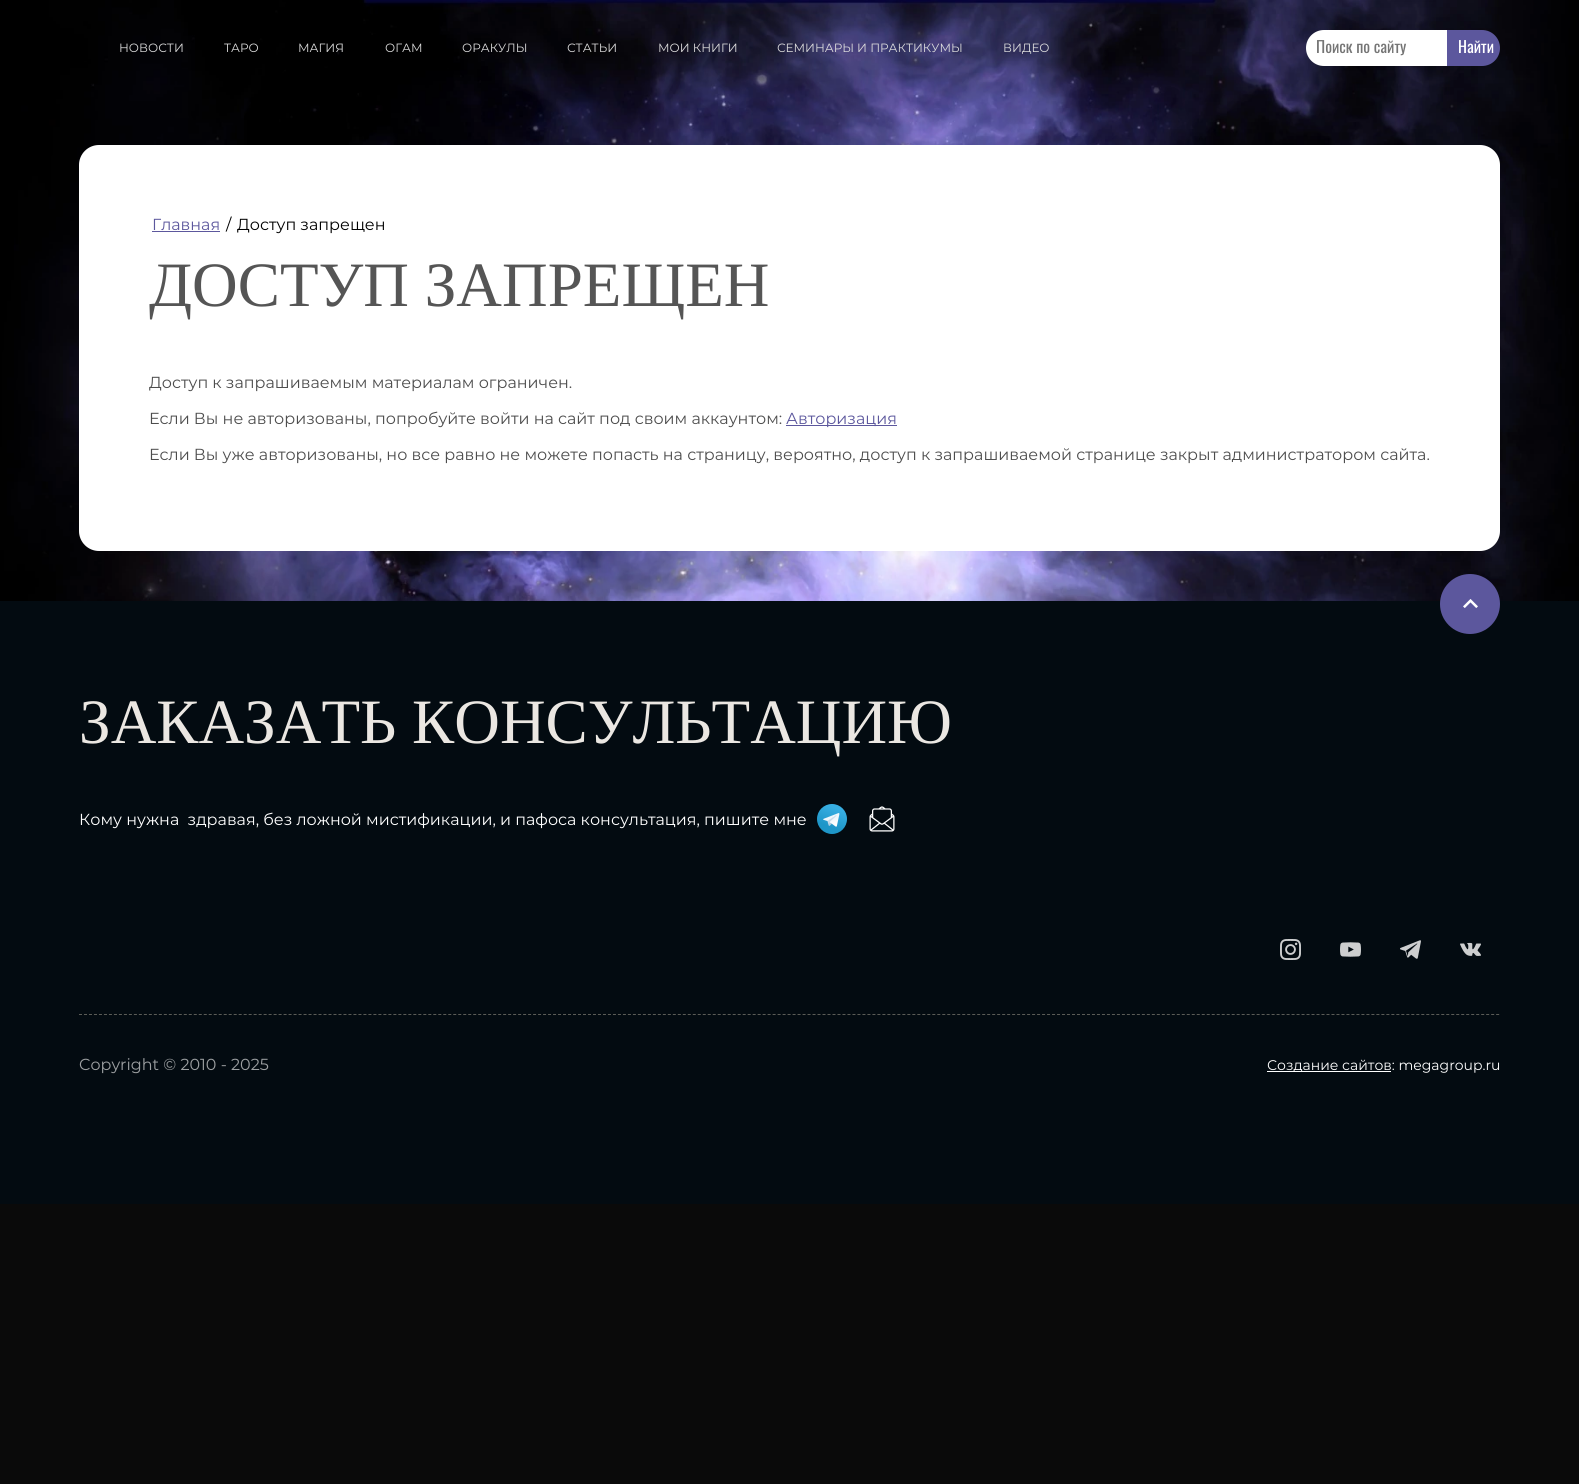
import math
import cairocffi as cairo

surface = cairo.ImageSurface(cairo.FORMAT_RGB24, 1579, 1484)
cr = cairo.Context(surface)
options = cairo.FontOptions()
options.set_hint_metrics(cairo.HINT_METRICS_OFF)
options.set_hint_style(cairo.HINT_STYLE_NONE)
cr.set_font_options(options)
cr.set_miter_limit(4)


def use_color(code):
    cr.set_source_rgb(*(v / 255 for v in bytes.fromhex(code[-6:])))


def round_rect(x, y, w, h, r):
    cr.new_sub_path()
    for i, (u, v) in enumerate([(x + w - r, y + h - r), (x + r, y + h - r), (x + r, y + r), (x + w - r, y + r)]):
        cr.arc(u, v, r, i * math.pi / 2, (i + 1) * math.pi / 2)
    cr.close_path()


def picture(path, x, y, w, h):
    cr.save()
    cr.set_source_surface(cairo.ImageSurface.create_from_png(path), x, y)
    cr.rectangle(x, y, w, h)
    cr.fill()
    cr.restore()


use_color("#0a0a0a")
cr.paint()
picture("img1.png", 0, 0, 1579, 601)
cr.select_font_face("Montserrat")
cr.set_font_size(12)
use_color("#dddddd")
cr.move_to(119, 52)
cr.show_text("НОВОСТИ")
cr.move_to(224, 52)
cr.show_text("ТАРО")
cr.move_to(298, 52)
cr.show_text("МАГИЯ")
cr.move_to(385, 52)
cr.show_text("ОГАМ")
cr.move_to(462, 52)
cr.show_text("ОРАКУЛЫ")
cr.move_to(567, 52)
cr.show_text("СТАТЬИ")
cr.move_to(658, 52)
cr.show_text("МОИ КНИГИ")
cr.move_to(777, 52)
cr.show_text("СЕМИНАРЫ И ПРАКТИКУМЫ")
cr.move_to(1003, 52)
cr.show_text("ВИДЕО")
use_color("#ffffff")
cr.new_path()
cr.move_to(1324, 30)
cr.line_to(1447, 30)
cr.line_to(1447, 66)
cr.line_to(1324, 66)
cr.curve_to(1314, 66, 1306, 58, 1306, 48)
cr.curve_to(1306, 38, 1314, 30, 1324, 30)
cr.close_path()
cr.fill()
cr.select_font_face("Oswald")
cr.set_font_size(16)
use_color("#757575")
cr.move_to(1316, 53)
cr.show_text("Поиск по сайту")
use_color("#5c579d")
cr.new_path()
cr.move_to(1447, 30)
cr.line_to(1482, 30)
cr.curve_to(1492, 30, 1500, 38, 1500, 48)
cr.curve_to(1500, 58, 1492, 66, 1482, 66)
cr.line_to(1447, 66)
cr.close_path()
cr.fill()
use_color("#ffffff")
cr.move_to(1458, 53)
cr.show_text("Найти")
round_rect(79, 145, 1421, 406, 20)
cr.fill()
cr.select_font_face("Montserrat")
use_color("#5c579d")
cr.move_to(152, 230)
cr.show_text("Главная")
cr.rectangle(152, 231, 68, 1)
cr.fill()
use_color("#000000")
cr.move_to(226, 230)
cr.show_text("/")
cr.move_to(237, 230)
cr.show_text("Доступ запрещен")
cr.select_font_face("Tinos")
cr.set_font_size(63.2)
use_color("#555555")
cr.move_to(149, 306)
cr.show_text("ДОСТУП ЗАПРЕЩЕН")
cr.select_font_face("Montserrat")
cr.set_font_size(16)
use_color("#4d4d4d")
cr.move_to(149, 388)
cr.show_text("Доступ к запрашиваемым материалам ограничен.")
cr.move_to(149, 424)
cr.show_text("Если Вы не авторизованы, попробуйте войти на сайт под своим аккаунтом:")
use_color("#5c579d")
cr.rectangle(786, 425, 111, 1)
cr.fill()
cr.move_to(786, 424)
cr.show_text("Авторизация")
use_color("#4d4d4d")
cr.move_to(149, 460)
cr.show_text("Если Вы уже авторизованы, но все равно не можете попасть на страницу, вероятно, доступ к запрашиваемой странице закрыт администратором сайта.")
use_color("#030b11")
cr.rectangle(0, 601, 1579, 603)
cr.fill()
use_color("#5c579d")
cr.arc(1470, 604, 30, 0, 2 * math.pi)
cr.fill()
picture("img2.png", 1463, 599, 15, 9)
cr.select_font_face("Tinos")
cr.set_font_size(63.2)
use_color("#ebe7e2")
cr.move_to(79, 743)
cr.show_text("ЗАКАЗАТЬ КОНСУЛЬТАЦИЮ")
cr.select_font_face("Montserrat")
cr.set_font_size(16)
use_color("#ffffff")
cr.move_to(79, 825)
cr.show_text("Кому нужна  здравая, без ложной мистификации, и пафоса консультация, пишите мне")
picture("img3.png", 817, 804, 30, 30)
picture("img4.png", 869, 806, 26, 26)
picture("img5.png", 1280, 939, 21, 21)
picture("img6.png", 1340, 942, 21, 15)
picture("img7.png", 1400, 940, 21, 19)
picture("img8.png", 1460, 942, 21, 14)
cr.new_path()
cr.move_to(79, 1014.5)
cr.line_to(1500, 1014.5)
use_color("#5b5c57")
cr.set_line_width(1)
cr.set_dash([3, 1.99])
cr.stroke()
use_color("#9da0a2")
cr.move_to(79, 1070)
cr.show_text("Copyright © 2010 - 2025")
use_color("#ffffff")
cr.rectangle(1267, 1071, 124, 1)
cr.fill()
cr.set_font_size(14)
cr.move_to(1267, 1070)
cr.show_text("Создание сайтов: megagroup.ru")
surface.write_to_png("result.png")
